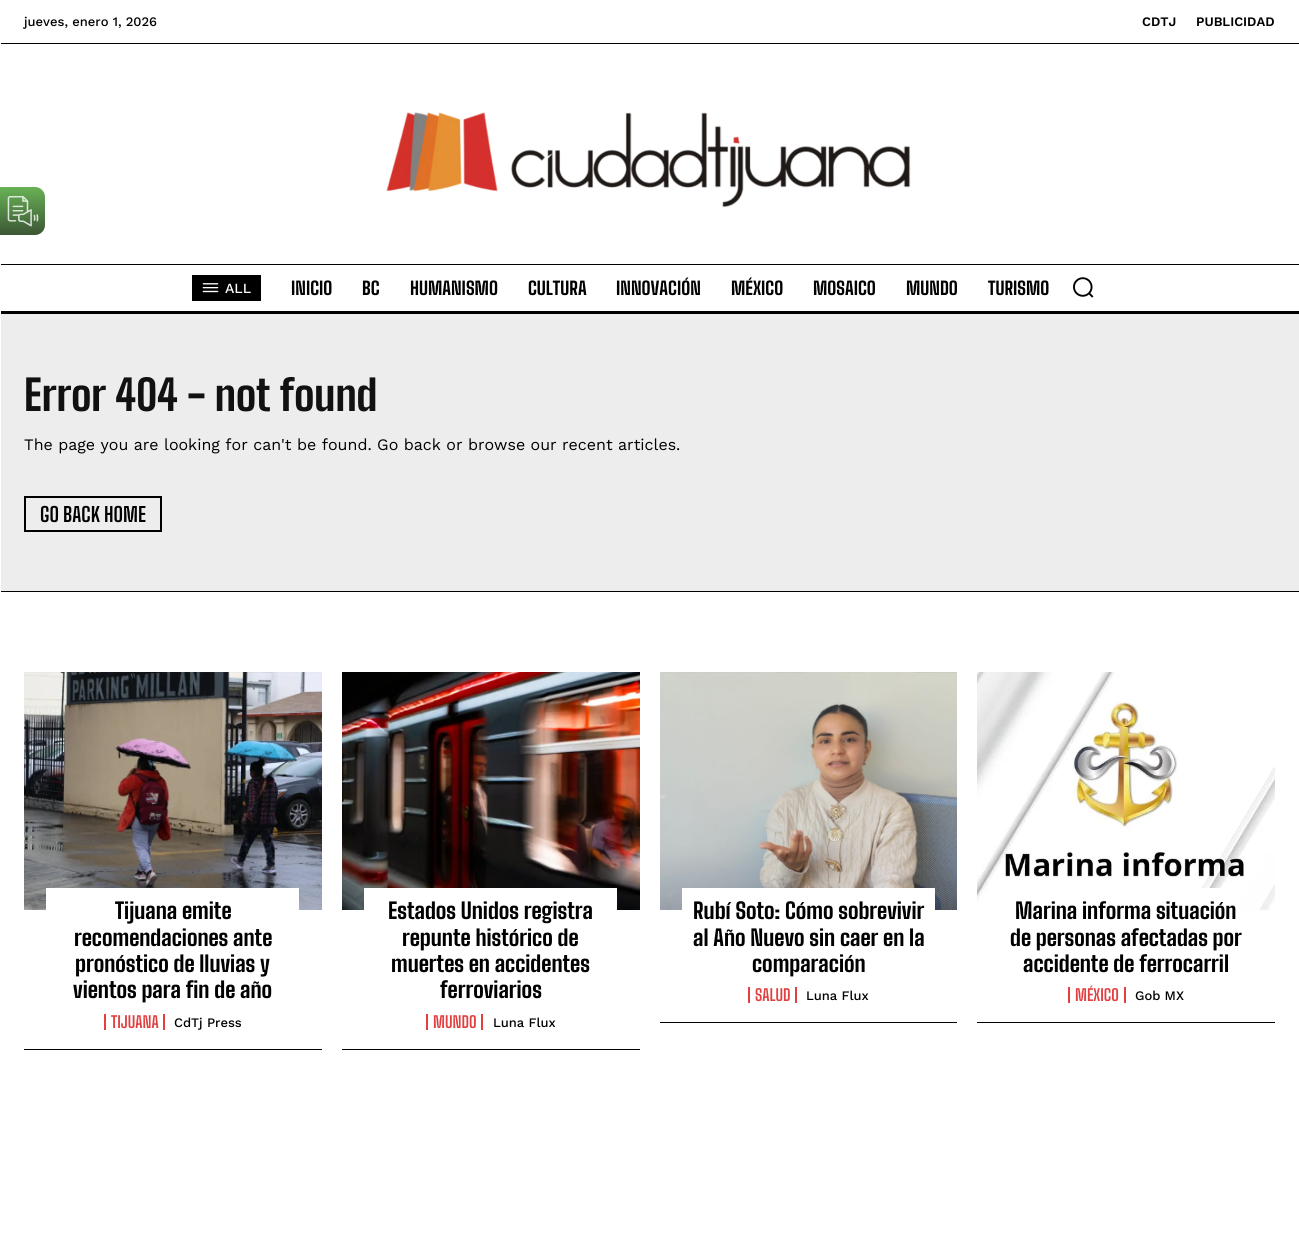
import math
import cairocffi as cairo

surface = cairo.ImageSurface(cairo.FORMAT_RGB24, 1299, 1248)
cr = cairo.Context(surface)
options = cairo.FontOptions()
options.set_hint_metrics(cairo.HINT_METRICS_OFF)
options.set_hint_style(cairo.HINT_STYLE_NONE)
cr.set_font_options(options)
cr.set_miter_limit(4)


def use_color(code):
    cr.set_source_rgb(*(v / 255 for v in bytes.fromhex(code[-6:])))


def picture(path, x, y, w, h):
    cr.save()
    cr.set_source_surface(cairo.ImageSurface.create_from_png(path), x, y)
    cr.rectangle(x, y, w, h)
    cr.fill()
    cr.restore()


use_color("#ffffff")
cr.paint()
cr.select_font_face("Work Sans Medium")
cr.set_font_size(13)
use_color("#000000")
cr.move_to(24, 26)
cr.show_text("jueves, enero 1, 2026")
cr.select_font_face("Work Sans SemiBold")
cr.move_to(1142, 26)
cr.show_text("CDTJ")
cr.move_to(1196, 26)
cr.show_text("PUBLICIDAD")
cr.rectangle(1, 43, 1298, 1)
cr.fill()
picture("img1.png", 386, 112, 525, 96)
cr.rectangle(1, 264, 1298, 1)
cr.fill()
cr.rectangle(1, 311, 1298, 3)
cr.fill()
cr.rectangle(192, 275, 69, 26)
cr.fill()
picture("img2.png", 202, 283, 17, 10)
cr.select_font_face("Work Sans Medium")
cr.set_font_size(14)
use_color("#ffffff")
cr.move_to(225, 293)
cr.show_text("ALL")
cr.select_font_face("Big Shoulders Text ExtraBold")
cr.set_font_size(18)
use_color("#000000")
cr.move_to(291, 295)
cr.show_text("INICIO")
cr.move_to(362, 295)
cr.show_text("BC")
cr.move_to(410, 295)
cr.show_text("HUMANISMO")
cr.move_to(528, 295)
cr.show_text("CULTURA")
cr.move_to(616, 295)
cr.show_text("INNOVACIÓN")
cr.move_to(731, 295)
cr.show_text("MÉXICO")
cr.move_to(813, 295)
cr.show_text("MOSAICO")
cr.move_to(906, 295)
cr.show_text("MUNDO")
cr.move_to(988, 295)
cr.show_text("TURISMO")
picture("img3.png", 1073, 277, 21, 21)
use_color("#ededed")
cr.rectangle(1, 314, 1298, 277)
cr.fill()
use_color("#000000")
cr.rectangle(1, 591, 1298, 1)
cr.fill()
cr.set_font_size(42)
use_color("#111111")
cr.move_to(24, 411)
cr.show_text("Error 404 - not found")
cr.select_font_face("Work Sans")
cr.set_font_size(16)
use_color("#000000")
cr.move_to(24, 450)
cr.show_text("The page you are looking for can't be found. Go back or browse our recent articles.")
cr.rectangle(25, 497, 136, 34)
cr.stroke()
cr.select_font_face("Big Shoulders Text", cairo.FONT_SLANT_NORMAL, cairo.FONT_WEIGHT_BOLD)
cr.set_font_size(20)
cr.move_to(40, 522)
cr.show_text("GO BACK HOME")
picture("img4.png", 24, 672, 298, 238)
use_color("#ffffff")
cr.rectangle(46, 888, 253, 22)
cr.fill()
cr.select_font_face("Big Shoulders Text ExtraBold")
cr.set_font_size(22)
use_color("#000000")
cr.move_to(115, 919)
cr.show_text("Tijuana emite")
cr.move_to(74, 946)
cr.show_text("recomendaciones ante")
cr.move_to(75, 972)
cr.show_text("pronóstico de lluvias y")
cr.move_to(73, 998)
cr.show_text("vientos para fin de año")
use_color("#e04040")
cr.rectangle(163, 1014, 2, 16)
cr.fill()
cr.rectangle(104, 1014, 2, 16)
cr.fill()
cr.select_font_face("Big Shoulders Text", cairo.FONT_SLANT_NORMAL, cairo.FONT_WEIGHT_BOLD)
cr.set_font_size(16)
cr.move_to(111, 1028)
cr.show_text("TIJUANA")
cr.select_font_face("Work Sans Medium")
cr.set_font_size(13)
use_color("#000000")
cr.move_to(174, 1027)
cr.show_text("CdTj Press")
cr.rectangle(24, 1049, 298, 1)
cr.fill()
picture("img5.png", 342, 672, 298, 238)
use_color("#ffffff")
cr.rectangle(364, 888, 253, 22)
cr.fill()
cr.select_font_face("Big Shoulders Text ExtraBold")
cr.set_font_size(22)
use_color("#000000")
cr.move_to(388, 919)
cr.show_text("Estados Unidos registra")
cr.move_to(402, 946)
cr.show_text("repunte histórico de")
cr.move_to(391, 972)
cr.show_text("muertes en accidentes")
cr.move_to(440, 998)
cr.show_text("ferroviarios")
use_color("#e04040")
cr.rectangle(481, 1014, 2, 16)
cr.fill()
cr.rectangle(426, 1014, 2, 16)
cr.fill()
cr.select_font_face("Big Shoulders Text", cairo.FONT_SLANT_NORMAL, cairo.FONT_WEIGHT_BOLD)
cr.set_font_size(16)
cr.move_to(433, 1028)
cr.show_text("MUNDO")
cr.select_font_face("Work Sans Medium")
cr.set_font_size(13)
use_color("#000000")
cr.move_to(493, 1027)
cr.show_text("Luna Flux")
cr.rectangle(342, 1049, 298, 1)
cr.fill()
picture("img6.png", 660, 672, 297, 238)
use_color("#ffffff")
cr.rectangle(682, 888, 253, 22)
cr.fill()
cr.select_font_face("Big Shoulders Text ExtraBold")
cr.set_font_size(22)
use_color("#000000")
cr.move_to(693, 919)
cr.show_text("Rubí Soto: Cómo sobrevivir")
cr.move_to(693, 946)
cr.show_text("al Año Nuevo sin caer en la")
cr.move_to(752, 972)
cr.show_text("comparación")
use_color("#e04040")
cr.rectangle(795, 987, 2, 16)
cr.fill()
cr.rectangle(748, 987, 2, 16)
cr.fill()
cr.select_font_face("Big Shoulders Text", cairo.FONT_SLANT_NORMAL, cairo.FONT_WEIGHT_BOLD)
cr.set_font_size(16)
cr.move_to(755, 1001)
cr.show_text("SALUD")
cr.select_font_face("Work Sans Medium")
cr.set_font_size(13)
use_color("#000000")
cr.move_to(806, 1000)
cr.show_text("Luna Flux")
cr.rectangle(660, 1022, 297, 1)
cr.fill()
picture("img7.png", 977, 672, 298, 238)
use_color("#ffffff")
cr.rectangle(1188, 888, 33, 22)
cr.fill()
cr.select_font_face("Big Shoulders Text ExtraBold")
cr.set_font_size(22)
use_color("#000000")
cr.move_to(1015, 919)
cr.show_text("Marina informa situación")
cr.move_to(1010, 946)
cr.show_text("de personas afectadas por")
cr.move_to(1023, 972)
cr.show_text("accidente de ferrocarril")
use_color("#e04040")
cr.rectangle(1124, 987, 2, 16)
cr.fill()
cr.rectangle(1068, 987, 2, 16)
cr.fill()
cr.select_font_face("Big Shoulders Text", cairo.FONT_SLANT_NORMAL, cairo.FONT_WEIGHT_BOLD)
cr.set_font_size(16)
cr.move_to(1075, 1001)
cr.show_text("MÉXICO")
cr.select_font_face("Work Sans Medium")
cr.set_font_size(13)
use_color("#000000")
cr.move_to(1135, 1000)
cr.show_text("Gob MX")
cr.rectangle(977, 1022, 298, 1)
cr.fill()
gradient = cairo.LinearGradient(22, 187, 23, 235)
gradient.add_color_stop_rgba(0, 0.408, 0.698, 0.333, 1)
gradient.add_color_stop_rgba(1, 0.235, 0.337, 0.208, 1)
cr.set_source(gradient)
cr.new_path()
cr.move_to(0, 187)
cr.line_to(35, 187)
cr.curve_to(40.5, 187, 45, 191.5, 45, 197)
cr.line_to(45, 225)
cr.curve_to(45, 230.5, 40.5, 235, 35, 235)
cr.line_to(0, 235)
cr.close_path()
cr.fill()
picture("img8.png", 7, 196, 32, 31)
surface.write_to_png("result.png")
